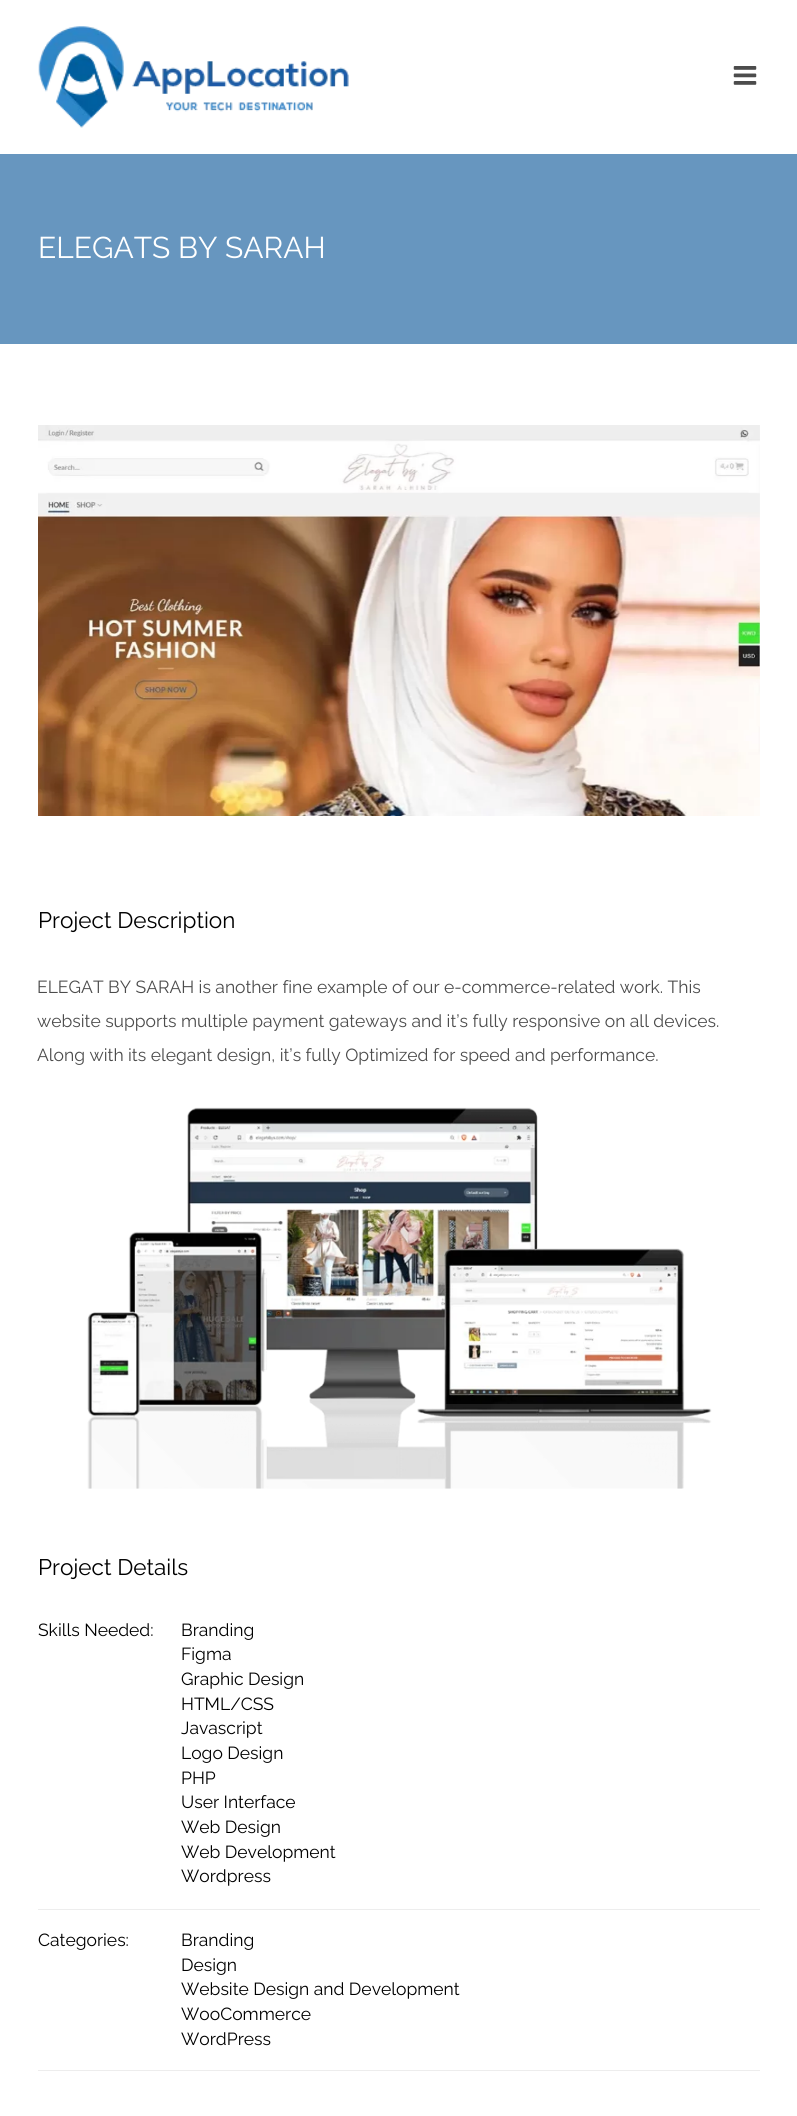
import math
import cairocffi as cairo

surface = cairo.ImageSurface(cairo.FORMAT_RGB24, 797, 2116)
cr = cairo.Context(surface)
options = cairo.FontOptions()
options.set_hint_metrics(cairo.HINT_METRICS_OFF)
options.set_hint_style(cairo.HINT_STYLE_NONE)
cr.set_font_options(options)
cr.set_miter_limit(4)


def use_color(code):
    cr.set_source_rgb(*(v / 255 for v in bytes.fromhex(code[-6:])))


def picture(path, x, y, w, h):
    cr.save()
    cr.set_source_surface(cairo.ImageSurface.create_from_png(path), x, y)
    cr.rectangle(x, y, w, h)
    cr.fill()
    cr.restore()


use_color("#ffffff")
cr.paint()
picture("img1.png", 38, 26, 311, 102)
picture("img2.png", 733, 66, 24, 19)
use_color("#6796bf")
cr.rectangle(0, 154, 797, 190)
cr.fill()
cr.select_font_face("Raleway")
cr.set_font_size(30)
use_color("#ffffff")
cr.move_to(38, 258)
cr.show_text("ELEGATS BY SARAH")
picture("img3.png", 38, 425, 722, 391)
cr.set_font_size(22.5)
use_color("#000000")
cr.move_to(38, 928)
cr.show_text("Project Description")
cr.set_font_size(17.5)
use_color("#4c4c4c")
cr.move_to(37, 993)
cr.show_text("ELEGAT BY SARAH is another fine example of our e-commerce-related work. This")
cr.move_to(37, 1027)
cr.show_text("website supports multiple payment gateways and it’s fully responsive on all devices.")
cr.move_to(37, 1061)
cr.show_text("Along with its elegant design, it’s fully Optimized for speed and performance.")
picture("img4.png", 87, 1107, 625, 382)
cr.set_font_size(22.5)
use_color("#000000")
cr.move_to(38, 1575)
cr.show_text("Project Details")
use_color("#ededed")
cr.rectangle(38, 1909, 722, 1)
cr.fill()
cr.set_font_size(17.5)
use_color("#000000")
cr.move_to(38, 1636)
cr.show_text("Skills Needed:")
cr.move_to(181, 1636)
cr.show_text("Branding")
cr.move_to(181, 1660)
cr.show_text("Figma")
cr.move_to(181, 1685)
cr.show_text("Graphic Design")
cr.move_to(181, 1710)
cr.show_text("HTML/CSS")
cr.move_to(181, 1734)
cr.show_text("Javascript")
cr.move_to(181, 1759)
cr.show_text("Logo Design")
cr.move_to(181, 1784)
cr.show_text("PHP")
cr.move_to(181, 1808)
cr.show_text("User Interface")
cr.move_to(181, 1833)
cr.show_text("Web Design")
cr.move_to(181, 1858)
cr.show_text("Web Development")
cr.move_to(181, 1882)
cr.show_text("Wordpress")
use_color("#ededed")
cr.rectangle(38, 2070, 722, 1)
cr.fill()
use_color("#000000")
cr.move_to(38, 1946)
cr.show_text("Categories:")
cr.move_to(181, 1946)
cr.show_text("Branding")
cr.move_to(181, 1971)
cr.show_text("Design")
cr.move_to(181, 1995)
cr.show_text("Website Design and Development")
cr.move_to(181, 2020)
cr.show_text("WooCommerce")
cr.move_to(181, 2045)
cr.show_text("WordPress")
surface.write_to_png("result.png")
